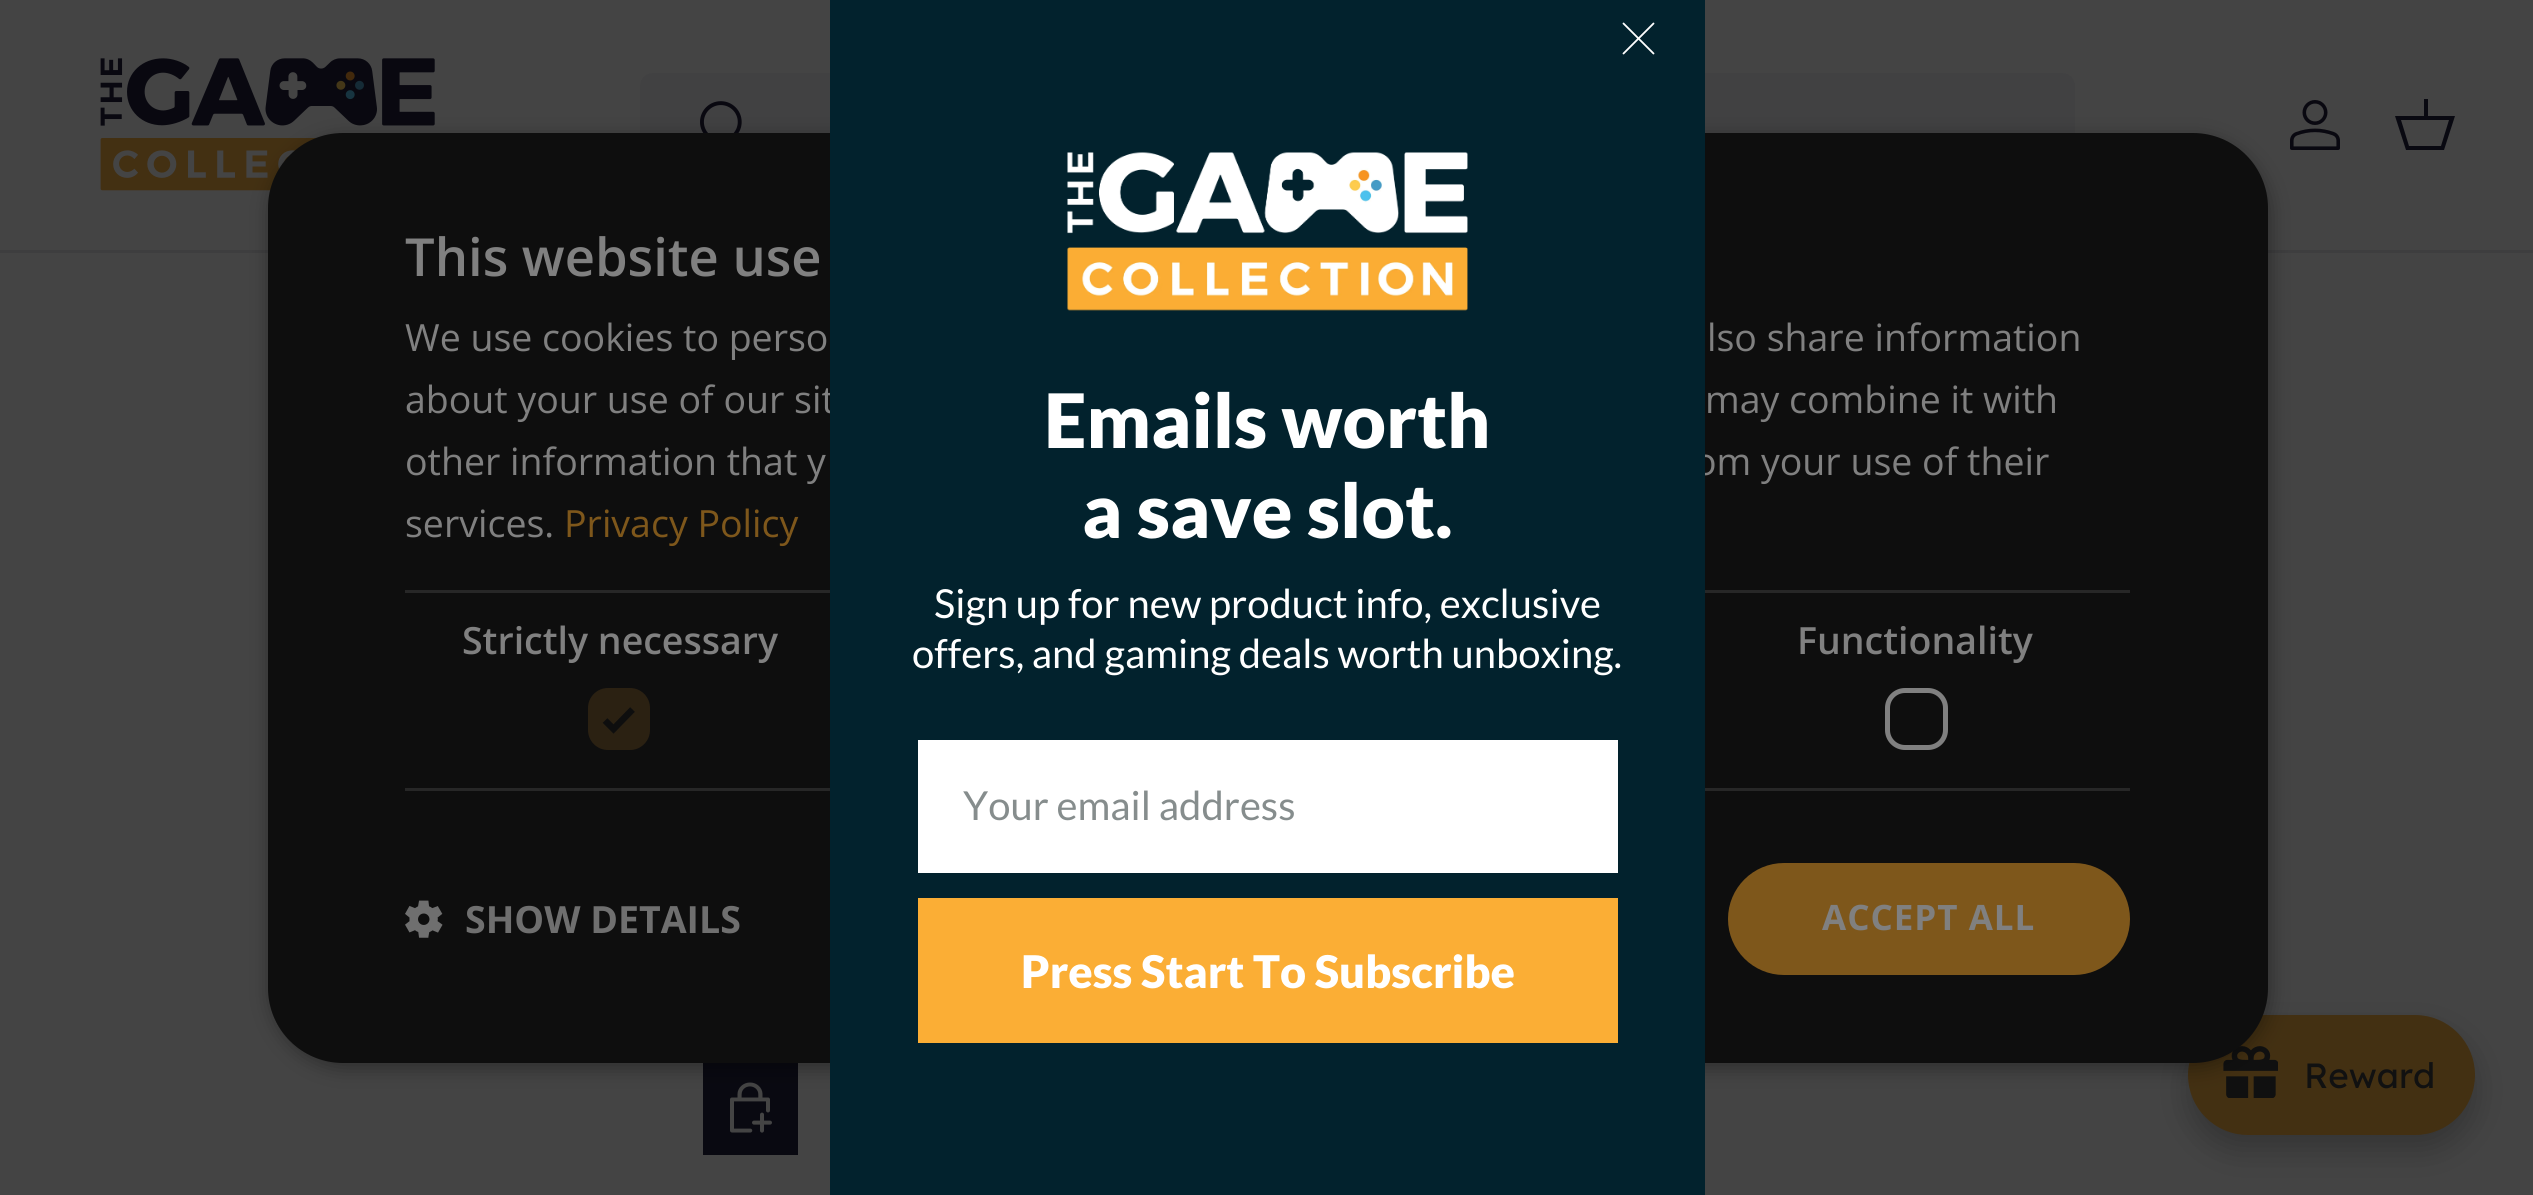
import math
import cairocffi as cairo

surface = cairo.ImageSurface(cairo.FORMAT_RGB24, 2533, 1195)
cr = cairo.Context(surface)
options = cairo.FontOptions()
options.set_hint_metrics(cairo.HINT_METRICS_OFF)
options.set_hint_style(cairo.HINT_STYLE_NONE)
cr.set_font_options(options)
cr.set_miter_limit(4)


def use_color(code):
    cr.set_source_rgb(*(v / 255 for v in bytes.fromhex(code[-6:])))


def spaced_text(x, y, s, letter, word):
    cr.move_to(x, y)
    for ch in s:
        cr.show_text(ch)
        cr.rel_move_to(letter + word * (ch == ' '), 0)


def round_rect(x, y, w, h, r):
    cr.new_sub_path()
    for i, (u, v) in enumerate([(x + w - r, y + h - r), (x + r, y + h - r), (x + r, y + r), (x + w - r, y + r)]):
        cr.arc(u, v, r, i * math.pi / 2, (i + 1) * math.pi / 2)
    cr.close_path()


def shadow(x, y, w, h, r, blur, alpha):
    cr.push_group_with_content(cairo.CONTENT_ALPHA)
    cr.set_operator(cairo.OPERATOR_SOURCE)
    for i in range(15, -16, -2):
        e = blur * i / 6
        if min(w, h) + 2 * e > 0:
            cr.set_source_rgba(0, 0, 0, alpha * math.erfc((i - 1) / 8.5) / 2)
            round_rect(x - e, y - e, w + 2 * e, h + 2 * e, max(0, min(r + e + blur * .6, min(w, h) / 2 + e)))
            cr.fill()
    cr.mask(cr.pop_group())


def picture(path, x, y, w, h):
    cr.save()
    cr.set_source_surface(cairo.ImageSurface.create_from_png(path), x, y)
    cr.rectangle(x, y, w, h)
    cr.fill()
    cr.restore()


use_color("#444444")
cr.paint()
use_color("#3e3e3f")
cr.rectangle(0, 250, 2533, 3)
cr.fill()
picture("img1.png", 100, 58, 335, 133)
use_color("#414142")
round_rect(640, 73, 1435, 105, 13)
cr.fill()
picture("img2.png", 700, 101, 42, 32)
picture("img3.png", 2290, 100, 50, 50)
use_color("#090911")
cr.new_path()
cr.move_to(2424, 116)
cr.line_to(2424, 99)
cr.line_to(2428, 99)
cr.line_to(2428, 116)
cr.line_to(2455, 116)
cr.line_to(2444, 150)
cr.line_to(2406, 150)
cr.line_to(2395, 116)
cr.close_path()
cr.move_to(2401, 120)
cr.line_to(2409, 146)
cr.line_to(2441, 146)
cr.line_to(2449, 120)
cr.close_path()
cr.fill()
cr.rectangle(703, 1063, 95, 92)
cr.fill()
picture("img6.png", 730, 1082, 42, 51)
use_color("#050505")
shadow(2188, 1030, 287, 120, 60, 15, 0.25)
use_color("#433012")
round_rect(2188, 1015, 287, 120, 60)
cr.fill()
picture("img7.png", 2223, 1046, 55, 52)
use_color("#000000")
shadow(270, 138, 2000, 930, 75, 10, 0.35)
use_color("#0e0e0e")
round_rect(268, 133, 2000, 930, 75)
cr.fill()
cr.select_font_face("Open Sans SemiBold")
cr.set_font_size(52.5)
use_color("#808080")
cr.move_to(405, 276)
cr.show_text("This website use")
cr.select_font_face("Open Sans")
cr.set_font_size(37.5)
cr.move_to(405, 351)
cr.show_text("We use cookies to perso")
cr.move_to(1707, 351)
cr.show_text("lso share information")
cr.move_to(405, 413)
cr.show_text("about your use of our sit")
cr.move_to(1705, 413)
cr.show_text("may combine it with")
cr.move_to(405, 475)
cr.show_text("other information that y")
cr.move_to(1694, 475)
cr.show_text("om your use of their")
cr.move_to(405, 537)
cr.show_text("services.")
use_color("#7e571b")
cr.move_to(564, 537)
cr.show_text("Privacy Policy")
use_color("#272727")
cr.rectangle(405, 590, 433, 3)
cr.fill()
cr.rectangle(405, 788, 433, 3)
cr.fill()
cr.select_font_face("Open Sans SemiBold")
use_color("#808080")
cr.move_to(462, 654)
cr.show_text("Strictly necessary")
use_color("#2b2112")
round_rect(588, 688, 62, 62, 20)
cr.fill()
cr.new_path()
cr.move_to(605, 720.5)
cr.line_to(613.5, 729)
cr.line_to(632.5, 709.5)
use_color("#0e0e0e")
cr.set_line_width(6.6)
cr.stroke()
use_color("#272727")
cr.rectangle(1700, 590, 430, 3)
cr.fill()
cr.rectangle(1700, 788, 430, 3)
cr.fill()
use_color("#808080")
cr.move_to(1797, 654)
cr.show_text("Functionality")
round_rect(1887.5, 690.5, 58, 57, 17.5)
cr.set_line_width(5)
cr.stroke()
picture("img4.png", 405, 900, 38, 38)
cr.select_font_face("Open Sans", cairo.FONT_SLANT_NORMAL, cairo.FONT_WEIGHT_BOLD)
use_color("#6f6f6f")
cr.move_to(465, 933)
cr.show_text("SHOW DETAILS")
use_color("#7e571b")
round_rect(1728, 863, 402, 112, 56)
cr.fill()
cr.set_font_size(35)
use_color("#808080")
spaced_text(1822, 930, "ACCEPT ALL", 1, 0)
use_color("#02222d")
cr.rectangle(830, 0, 875, 1195)
cr.fill()
cr.new_path()
cr.move_to(1623.5, 23.5)
cr.line_to(1653.5, 53.5)
cr.move_to(1653.5, 23.5)
cr.line_to(1623.5, 53.5)
use_color("#ffffff")
cr.set_line_width(1.8)
cr.set_line_cap(cairo.LINE_CAP_ROUND)
cr.stroke()
picture("img5.png", 1067, 152, 401, 159)
cr.select_font_face("Lato Black")
cr.set_font_size(75)
cr.move_to(1044, 448)
cr.show_text("Emails worth")
cr.move_to(1082, 538)
cr.show_text("a save slot.")
cr.select_font_face("Lato")
cr.set_font_size(40)
cr.move_to(934, 618)
cr.show_text("Sign up for new product info, exclusive")
cr.move_to(912, 668)
cr.show_text("offers, and gaming deals worth unboxing.")
cr.rectangle(918, 740, 700, 133)
cr.fill()
use_color("#868d8d")
cr.move_to(963, 820)
cr.show_text("Your email address")
use_color("#fbae35")
cr.rectangle(918, 898, 700, 145)
cr.fill()
cr.select_font_face("Lato Black")
cr.set_font_size(45)
use_color("#ffffff")
cr.move_to(1021, 988)
cr.show_text("Press Start To Subscribe")
cr.select_font_face("Lexend")
cr.set_font_size(35)
use_color("#111111")
cr.move_to(2304, 1088)
cr.show_text("Reward")
surface.write_to_png("result.png")
